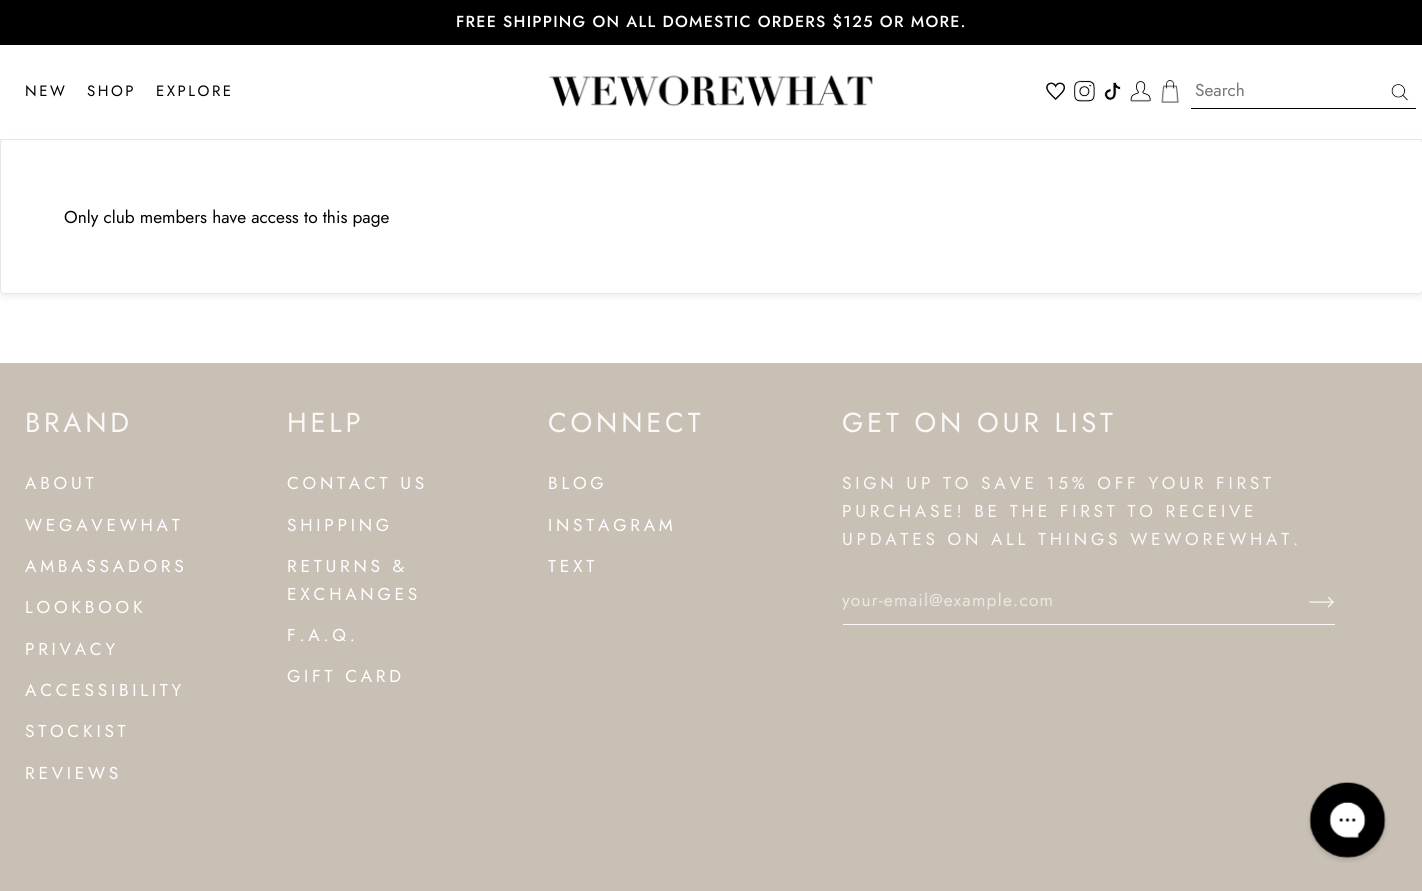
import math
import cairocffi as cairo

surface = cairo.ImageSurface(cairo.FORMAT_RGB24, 1422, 891)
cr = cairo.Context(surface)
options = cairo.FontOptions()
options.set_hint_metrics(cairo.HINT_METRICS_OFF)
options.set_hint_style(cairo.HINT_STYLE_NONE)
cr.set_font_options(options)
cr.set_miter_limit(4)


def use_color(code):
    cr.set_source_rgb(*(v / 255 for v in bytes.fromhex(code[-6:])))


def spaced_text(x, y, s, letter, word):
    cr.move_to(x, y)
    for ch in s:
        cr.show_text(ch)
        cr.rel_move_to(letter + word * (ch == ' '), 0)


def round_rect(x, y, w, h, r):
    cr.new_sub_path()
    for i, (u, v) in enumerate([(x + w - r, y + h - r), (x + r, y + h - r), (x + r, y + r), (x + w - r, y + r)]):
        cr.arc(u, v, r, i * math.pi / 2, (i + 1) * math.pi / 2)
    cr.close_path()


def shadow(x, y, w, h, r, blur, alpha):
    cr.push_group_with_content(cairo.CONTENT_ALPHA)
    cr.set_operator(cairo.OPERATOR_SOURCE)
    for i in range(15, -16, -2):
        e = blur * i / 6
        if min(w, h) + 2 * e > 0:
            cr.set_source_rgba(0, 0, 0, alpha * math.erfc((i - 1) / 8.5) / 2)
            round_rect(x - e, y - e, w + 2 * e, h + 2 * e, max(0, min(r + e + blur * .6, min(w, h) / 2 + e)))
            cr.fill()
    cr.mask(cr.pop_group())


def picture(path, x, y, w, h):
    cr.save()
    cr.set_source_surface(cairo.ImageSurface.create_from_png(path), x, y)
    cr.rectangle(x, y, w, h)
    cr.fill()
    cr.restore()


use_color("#ffffff")
cr.paint()
use_color("#000000")
cr.rectangle(0, 0, 1422, 45)
cr.fill()
cr.select_font_face("Jost Medium")
cr.set_font_size(15.95)
use_color("#ffffff")
spaced_text(456, 27, "FREE SHIPPING ON ALL DOMESTIC ORDERS $125 OR MORE.", 1.25, 0)
cr.save()
cr.set_fill_rule(cairo.FILL_RULE_EVEN_ODD)
cr.new_path()
cr.move_to(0, 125)
cr.line_to(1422, 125)
cr.line_to(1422, 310)
cr.line_to(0, 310)
cr.close_path()
cr.move_to(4, 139)
cr.line_to(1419, 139)
cr.curve_to(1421, 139, 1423, 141, 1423, 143)
cr.line_to(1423, 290)
cr.curve_to(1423, 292, 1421, 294, 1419, 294)
cr.line_to(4, 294)
cr.curve_to(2, 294, 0, 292, 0, 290)
cr.line_to(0, 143)
cr.curve_to(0, 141, 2, 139, 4, 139)
cr.close_path()
cr.clip()
use_color("#000000")
shadow(1, 140, 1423, 155, 4, 4.5, 0.1)
cr.restore()
cr.rectangle(0, 134, 1422, 5)
cr.fill()
round_rect(0.5, 139.5, 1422, 154, 3.5)
cr.set_source_rgba(0, 0, 0, 0.1)
cr.set_line_width(1)
cr.stroke()
use_color("#e6e6e6")
cr.rectangle(0, 139, 1422, 1)
cr.fill()
cr.select_font_face("Jost")
cr.set_font_size(15)
use_color("#000000")
spaced_text(25, 96, "NEW", 2.5, 0)
spaced_text(87, 96, "SHOP", 2.5, 0)
spaced_text(156, 96, "EXPLORE", 2.5, 0)
picture("img1.png", 549, 75, 324, 32)
picture("img2.png", 1046, 82, 19, 18)
picture("img3.png", 1074, 80, 21, 22)
picture("img4.png", 1104, 82, 17, 19)
picture("img5.png", 1130, 80, 21, 22)
picture("img6.png", 1161, 80, 18, 23)
cr.rectangle(1191, 108, 225, 1)
cr.fill()
cr.set_font_size(17.25)
use_color("#757575")
cr.move_to(1195, 96)
cr.show_text("Search")
picture("img7.png", 1391, 84, 18, 17)
use_color("#000000")
cr.move_to(64, 223)
cr.show_text("Only club members have access to this page")
use_color("#c8bfb5")
cr.rectangle(0, 363, 1422, 528)
cr.fill()
cr.set_font_size(27.5)
use_color("#faf9f8")
spaced_text(25, 432, "BRAND", 3.75, 0)
cr.set_font_size(17.25)
use_color("#ffffff")
spaced_text(25, 489, "ABOUT", 3.75, 0)
spaced_text(25, 531, "WEGAVEWHAT", 3.75, 0)
spaced_text(25, 572, "AMBASSADORS", 3.75, 0)
spaced_text(25, 613, "LOOKBOOK", 3.75, 0)
spaced_text(25, 655, "PRIVACY", 3.75, 0)
spaced_text(25, 696, "ACCESSIBILITY", 3.75, 0)
spaced_text(25, 737, "STOCKIST", 3.75, 0)
spaced_text(25, 779, "REVIEWS", 3.75, 0)
cr.set_font_size(27.5)
use_color("#faf9f8")
spaced_text(287, 432, "HELP", 3.75, 0)
cr.set_font_size(17.25)
use_color("#ffffff")
spaced_text(287, 489, "CONTACT US", 3.75, 0)
spaced_text(287, 531, "SHIPPING", 3.75, 0)
spaced_text(287, 572, "RETURNS &", 3.75, 0)
spaced_text(287, 600, "EXCHANGES", 3.75, 0)
spaced_text(287, 641, "F.A.Q.", 3.75, 0)
spaced_text(287, 682, "GIFT CARD", 3.75, 0)
cr.set_font_size(27.5)
use_color("#faf9f8")
spaced_text(548, 432, "CONNECT", 3.75, 0)
cr.set_font_size(17.25)
use_color("#ffffff")
spaced_text(548, 489, "BLOG", 3.75, 0)
spaced_text(548, 531, "INSTAGRAM", 3.75, 0)
spaced_text(548, 572, "TEXT", 3.75, 0)
cr.set_font_size(27.5)
use_color("#faf9f8")
spaced_text(842, 432, "GET ON OUR LIST", 3.75, 0)
cr.set_font_size(17.25)
spaced_text(842, 489, "SIGN UP TO SAVE 15% OFF YOUR FIRST", 3.75, 0)
spaced_text(842, 517, "PURCHASE! BE THE FIRST TO RECEIVE", 3.75, 0)
spaced_text(842, 545, "UPDATES ON ALL THINGS WEWOREWHAT.", 3.75, 0)
cr.rectangle(843, 624, 492, 1)
cr.fill()
use_color("#ebe8e4")
spaced_text(842, 606, "your-email@example.com", 1.25, 0)
picture("img8.png", 1309, 596, 25, 12)
picture("img9.png", 1307, 782, 81, 81)
surface.write_to_png("result.png")
